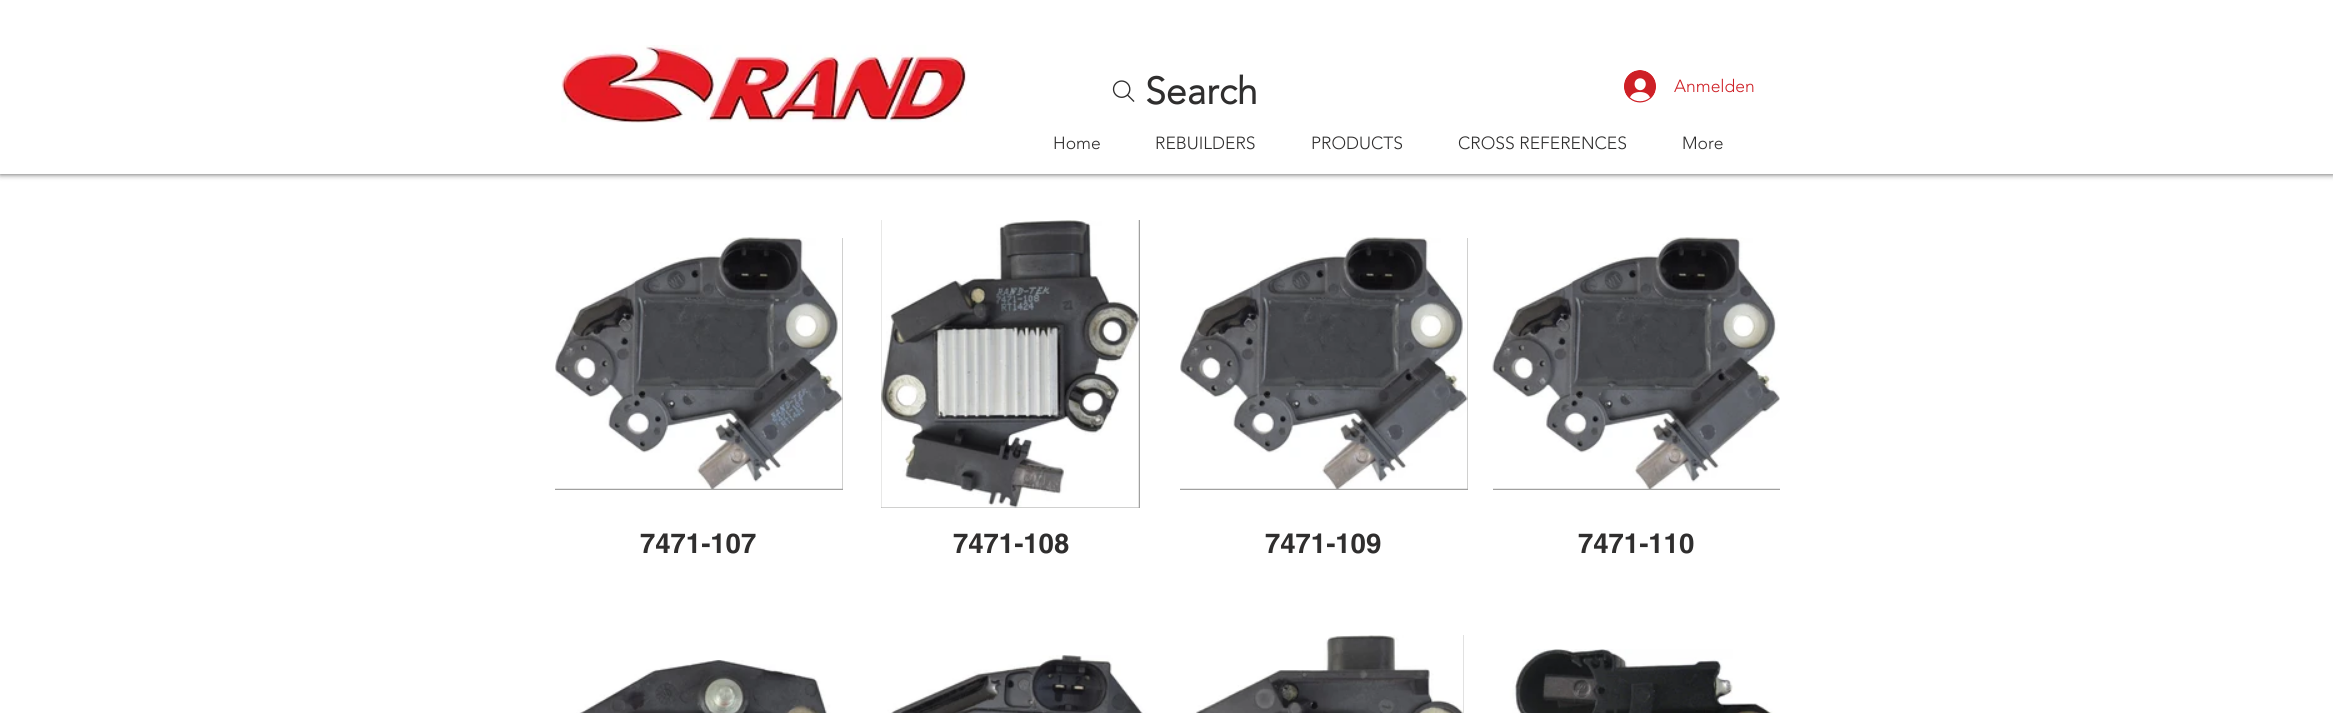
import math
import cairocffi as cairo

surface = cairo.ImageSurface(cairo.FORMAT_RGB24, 2333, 713)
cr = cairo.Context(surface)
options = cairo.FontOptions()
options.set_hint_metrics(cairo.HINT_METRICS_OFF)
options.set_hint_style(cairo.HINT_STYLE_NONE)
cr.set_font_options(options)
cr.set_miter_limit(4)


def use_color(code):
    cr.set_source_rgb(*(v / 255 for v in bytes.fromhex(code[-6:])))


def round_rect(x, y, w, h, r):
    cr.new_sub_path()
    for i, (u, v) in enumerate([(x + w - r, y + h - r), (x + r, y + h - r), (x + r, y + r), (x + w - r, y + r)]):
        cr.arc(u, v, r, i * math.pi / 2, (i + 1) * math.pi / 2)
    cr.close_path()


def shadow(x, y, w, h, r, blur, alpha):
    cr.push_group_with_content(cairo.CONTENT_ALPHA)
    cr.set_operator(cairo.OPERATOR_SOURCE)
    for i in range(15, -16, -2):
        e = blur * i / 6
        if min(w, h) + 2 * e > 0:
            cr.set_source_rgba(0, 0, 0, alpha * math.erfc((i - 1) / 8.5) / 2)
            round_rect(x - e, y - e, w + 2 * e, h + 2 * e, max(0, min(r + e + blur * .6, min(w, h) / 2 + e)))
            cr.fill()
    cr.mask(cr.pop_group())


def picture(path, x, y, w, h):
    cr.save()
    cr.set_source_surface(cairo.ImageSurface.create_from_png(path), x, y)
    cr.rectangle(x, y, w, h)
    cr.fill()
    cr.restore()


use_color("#ffffff")
cr.paint()
use_color("#000000")
shadow(0, 0, 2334, 174, 0, 3, 0.7)
use_color("#ffffff")
cr.rectangle(0, 0, 2333, 174)
cr.fill()
picture("img1.png", 561, 45, 406, 78)
picture("img2.png", 1112, 80, 23, 22)
cr.select_font_face("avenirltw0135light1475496", cairo.FONT_SLANT_NORMAL, cairo.FONT_WEIGHT_BOLD)
cr.set_font_size(37.5)
use_color("#2f2e2e")
cr.move_to(1145, 104)
cr.show_text("Search")
picture("img3.png", 1624, 70, 32, 33)
cr.select_font_face("avenirltw0135light1475496 Light")
cr.set_font_size(17.5)
use_color("#ce2026")
cr.move_to(1674, 92)
cr.show_text("Anmelden")
use_color("#2f2e2e")
cr.move_to(1053, 149)
cr.show_text("Home")
cr.move_to(1155, 149)
cr.show_text("REBUILDERS")
cr.move_to(1311, 149)
cr.show_text("PRODUCTS")
cr.move_to(1458, 149)
cr.show_text("CROSS REFERENCES")
cr.move_to(1682, 149)
cr.show_text("More")
use_color("#a0a09f")
cr.rectangle(555, 238, 288, 252)
cr.fill()
picture("img4.png", 555, 237, 288, 252)
cr.select_font_face("helvetica", cairo.FONT_SLANT_NORMAL, cairo.FONT_WEIGHT_BOLD)
cr.set_font_size(27.5)
use_color("#2f2e2e")
cr.move_to(640, 553)
cr.show_text("7471-107")
use_color("#a0a09f")
cr.rectangle(881, 220, 259, 288)
cr.fill()
picture("img5.png", 881, 220, 258, 288)
use_color("#2f2e2e")
cr.move_to(953, 553)
cr.show_text("7471-108")
use_color("#a0a09f")
cr.rectangle(1180, 238, 288, 252)
cr.fill()
picture("img6.png", 1180, 237, 288, 252)
use_color("#2f2e2e")
cr.move_to(1265, 553)
cr.show_text("7471-109")
use_color("#a0a09f")
cr.rectangle(1493, 488, 287, 2)
cr.fill()
picture("img7.png", 1492, 237, 288, 252)
use_color("#2f2e2e")
cr.move_to(1578, 553)
cr.show_text("7471-110")
picture("img8.png", 555, 660, 288, 53)
picture("img9.png", 868, 655, 287, 58)
use_color("#a0a09f")
cr.rectangle(1463, 635, 1, 78)
cr.fill()
picture("img10.png", 1183, 635, 281, 78)
picture("img11.png", 1493, 649, 287, 64)
surface.write_to_png("result.png")
